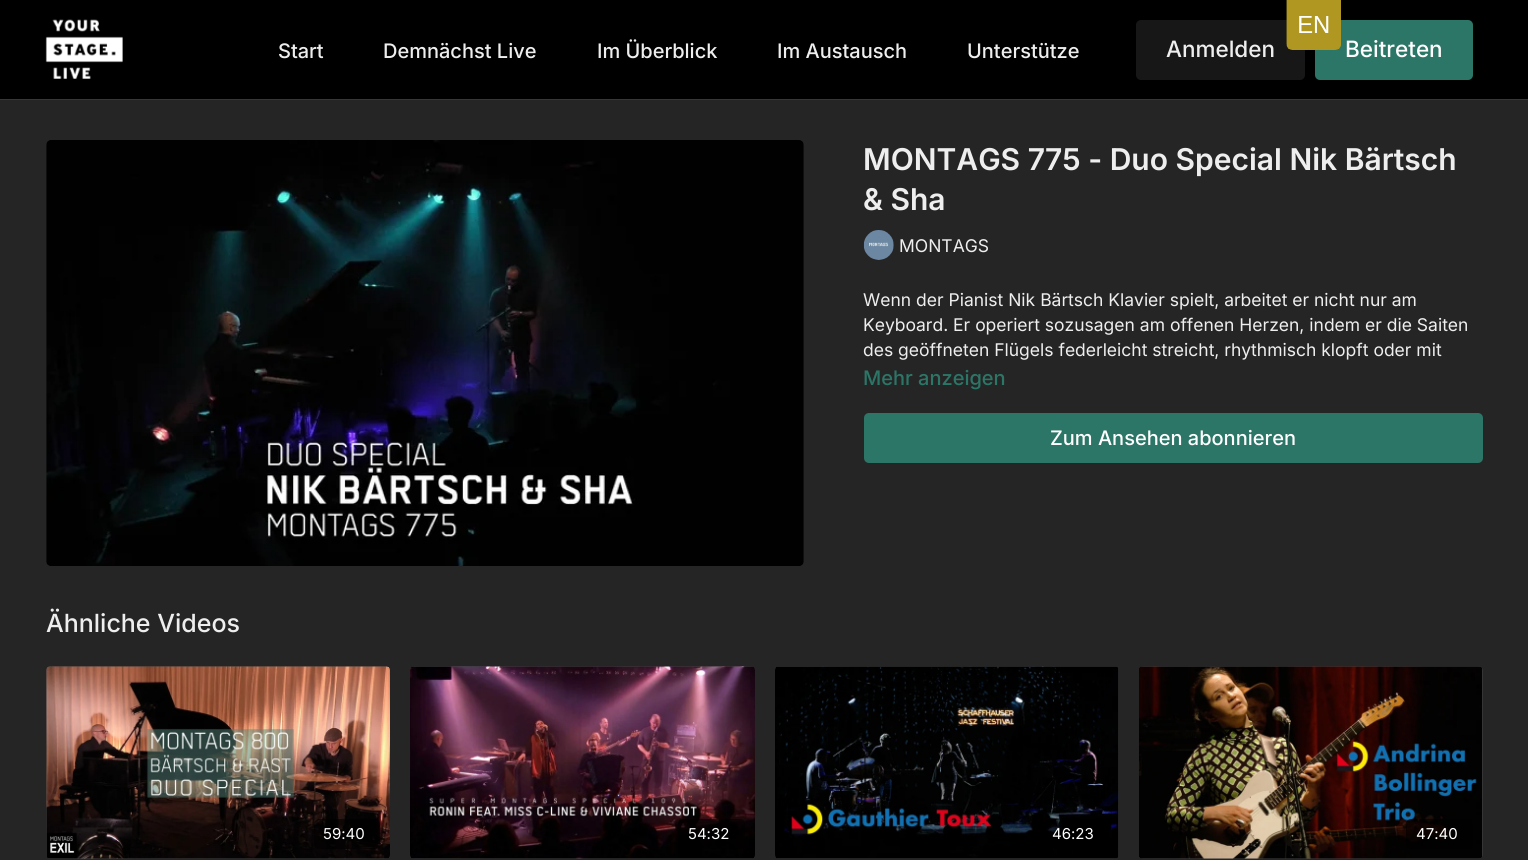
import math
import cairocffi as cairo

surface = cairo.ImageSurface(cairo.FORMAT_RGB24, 1528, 860)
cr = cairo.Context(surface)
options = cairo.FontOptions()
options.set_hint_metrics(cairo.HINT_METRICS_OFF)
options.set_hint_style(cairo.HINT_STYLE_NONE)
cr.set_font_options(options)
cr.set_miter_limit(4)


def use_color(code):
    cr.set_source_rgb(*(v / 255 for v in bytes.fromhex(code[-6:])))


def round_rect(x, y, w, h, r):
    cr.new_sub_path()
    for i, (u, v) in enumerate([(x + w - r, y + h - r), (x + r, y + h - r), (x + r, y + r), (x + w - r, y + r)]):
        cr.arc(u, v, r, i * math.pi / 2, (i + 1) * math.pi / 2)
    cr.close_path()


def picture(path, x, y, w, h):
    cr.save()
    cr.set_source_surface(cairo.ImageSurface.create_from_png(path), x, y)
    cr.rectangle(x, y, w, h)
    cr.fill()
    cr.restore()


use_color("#252525")
cr.paint()
use_color("#000000")
cr.rectangle(0, 0, 1528, 99)
cr.fill()
use_color("#171717")
round_rect(1136, 20, 169, 60, 5)
cr.fill()
use_color("#2c7667")
round_rect(1315, 20, 158, 60, 5)
cr.fill()
picture("img1.png", 1286, 0, 55, 50)
use_color("#373737")
cr.rectangle(0, 99, 1528, 1)
cr.fill()
picture("img2.png", 45, 19, 78, 60)
cr.select_font_face("Inter Medium")
cr.set_font_size(20)
use_color("#eeeeee")
cr.move_to(278, 58)
cr.show_text("Start")
cr.move_to(383, 58)
cr.show_text("Demnächst Live")
cr.move_to(597, 58)
cr.show_text("Im Überblick")
cr.move_to(777, 58)
cr.show_text("Im Austausch")
cr.move_to(967, 58)
cr.show_text("Unterstütze")
cr.set_font_size(22.5)
cr.move_to(1166, 57)
cr.show_text("Anmelden")
use_color("#ffffff")
cr.move_to(1345, 57)
cr.show_text("Beitreten")
picture("img3.png", 46, 140, 758, 426)
cr.select_font_face("Inter SemiBold")
cr.set_font_size(30)
use_color("#eeeeee")
cr.move_to(863, 170)
cr.show_text("MONTAGS 775 - Duo Special Nik Bärtsch")
cr.move_to(863, 210)
cr.show_text("& Sha")
picture("img4.png", 863, 230, 31, 30)
cr.select_font_face("Inter")
cr.set_font_size(17.5)
cr.move_to(899, 252)
cr.show_text("MONTAGS")
cr.move_to(863, 306)
cr.show_text("Wenn der Pianist Nik Bärtsch Klavier spielt, arbeitet er nicht nur am")
cr.move_to(863, 331)
cr.show_text("Keyboard. Er operiert sozusagen am offenen Herzen, indem er die Saiten")
cr.move_to(863, 356)
cr.show_text("des geöffneten Flügels federleicht streicht, rhythmisch klopft oder mit")
cr.select_font_face("Inter Medium")
cr.set_font_size(20)
use_color("#2c7667")
cr.move_to(863, 385)
cr.show_text("Mehr anzeigen")
round_rect(864, 413, 619, 50, 5)
cr.fill()
use_color("#ffffff")
cr.move_to(1050, 445)
cr.show_text("Zum Ansehen abonnieren")
cr.set_font_size(25)
use_color("#eeeeee")
cr.move_to(46, 632)
cr.show_text("Ähnliche Videos")
gradient = cairo.LinearGradient(46, 763, 390, 763)
gradient.add_color_stop_rgba(0.08, 0.255, 0.255, 0.255, 1)
gradient.add_color_stop_rgba(0.18, 0.247, 0.247, 0.247, 1)
gradient.add_color_stop_rgba(0.33, 0.239, 0.239, 0.239, 1)
cr.set_source(gradient)
round_rect(46, 666, 344, 193, 5)
cr.fill()
picture("img5.png", 46, 666, 344, 193)
cr.set_source_rgba(0, 0, 0, 0.6)
round_rect(314, 819, 66, 30, 5)
cr.fill()
cr.select_font_face("Inter")
cr.set_font_size(15)
use_color("#ffffff")
cr.move_to(323, 839)
cr.show_text("59:40")
gradient = cairo.LinearGradient(410, 763, 755, 763)
gradient.add_color_stop_rgba(0.08, 0.255, 0.255, 0.255, 1)
gradient.add_color_stop_rgba(0.18, 0.247, 0.247, 0.247, 1)
gradient.add_color_stop_rgba(0.33, 0.239, 0.239, 0.239, 1)
cr.set_source(gradient)
round_rect(410, 666, 345, 193, 5)
cr.fill()
picture("img6.png", 410, 666, 345, 193)
cr.set_source_rgba(0, 0, 0, 0.6)
round_rect(678, 819, 67, 30, 5)
cr.fill()
use_color("#ffffff")
cr.move_to(688, 839)
cr.show_text("54:32")
gradient = cairo.LinearGradient(775, 763, 1119, 763)
gradient.add_color_stop_rgba(0.08, 0.255, 0.255, 0.255, 1)
gradient.add_color_stop_rgba(0.18, 0.247, 0.247, 0.247, 1)
gradient.add_color_stop_rgba(0.33, 0.239, 0.239, 0.239, 1)
cr.set_source(gradient)
round_rect(775, 666, 344, 193, 5)
cr.fill()
picture("img7.png", 775, 666, 344, 193)
cr.set_source_rgba(0, 0, 0, 0.6)
round_rect(1043, 819, 66, 30, 5)
cr.fill()
use_color("#ffffff")
cr.move_to(1052, 839)
cr.show_text("46:23")
gradient = cairo.LinearGradient(1139, 763, 1483, 763)
gradient.add_color_stop_rgba(0.08, 0.255, 0.255, 0.255, 1)
gradient.add_color_stop_rgba(0.18, 0.247, 0.247, 0.247, 1)
gradient.add_color_stop_rgba(0.33, 0.239, 0.239, 0.239, 1)
cr.set_source(gradient)
round_rect(1139, 666, 344, 193, 5)
cr.fill()
picture("img8.png", 1139, 666, 344, 193)
cr.set_source_rgba(0, 0, 0, 0.6)
round_rect(1406, 819, 67, 30, 5)
cr.fill()
use_color("#ffffff")
cr.move_to(1416, 839)
cr.show_text("47:40")
surface.write_to_png("result.png")
